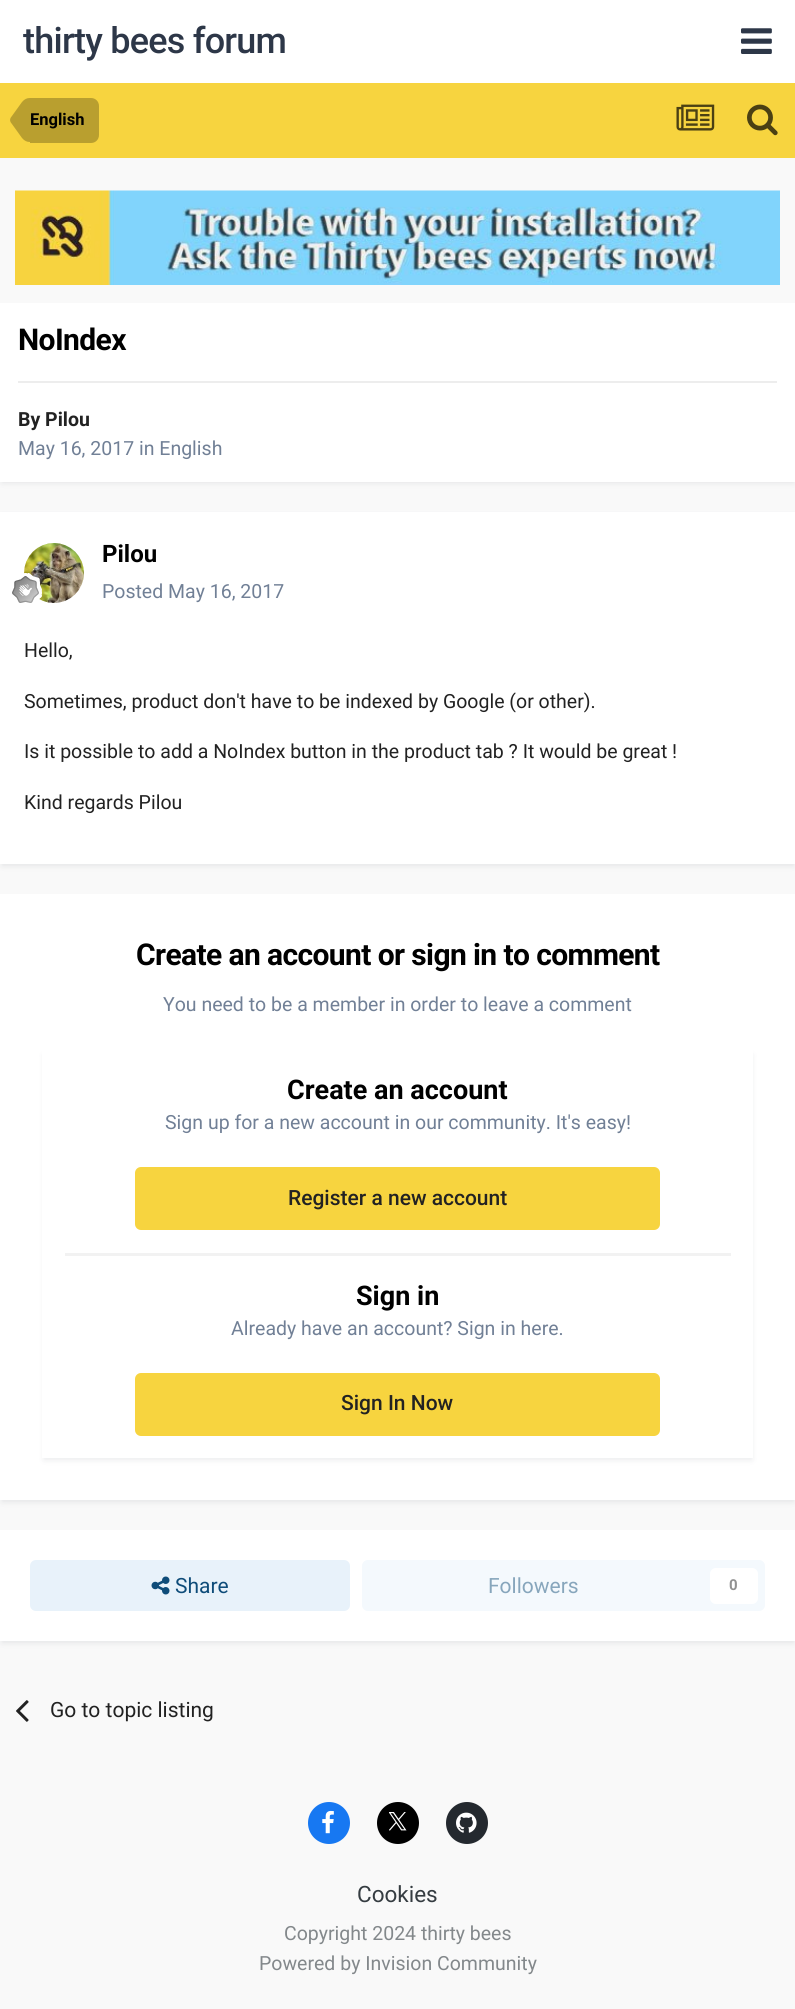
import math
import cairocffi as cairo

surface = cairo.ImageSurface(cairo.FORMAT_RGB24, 795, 2009)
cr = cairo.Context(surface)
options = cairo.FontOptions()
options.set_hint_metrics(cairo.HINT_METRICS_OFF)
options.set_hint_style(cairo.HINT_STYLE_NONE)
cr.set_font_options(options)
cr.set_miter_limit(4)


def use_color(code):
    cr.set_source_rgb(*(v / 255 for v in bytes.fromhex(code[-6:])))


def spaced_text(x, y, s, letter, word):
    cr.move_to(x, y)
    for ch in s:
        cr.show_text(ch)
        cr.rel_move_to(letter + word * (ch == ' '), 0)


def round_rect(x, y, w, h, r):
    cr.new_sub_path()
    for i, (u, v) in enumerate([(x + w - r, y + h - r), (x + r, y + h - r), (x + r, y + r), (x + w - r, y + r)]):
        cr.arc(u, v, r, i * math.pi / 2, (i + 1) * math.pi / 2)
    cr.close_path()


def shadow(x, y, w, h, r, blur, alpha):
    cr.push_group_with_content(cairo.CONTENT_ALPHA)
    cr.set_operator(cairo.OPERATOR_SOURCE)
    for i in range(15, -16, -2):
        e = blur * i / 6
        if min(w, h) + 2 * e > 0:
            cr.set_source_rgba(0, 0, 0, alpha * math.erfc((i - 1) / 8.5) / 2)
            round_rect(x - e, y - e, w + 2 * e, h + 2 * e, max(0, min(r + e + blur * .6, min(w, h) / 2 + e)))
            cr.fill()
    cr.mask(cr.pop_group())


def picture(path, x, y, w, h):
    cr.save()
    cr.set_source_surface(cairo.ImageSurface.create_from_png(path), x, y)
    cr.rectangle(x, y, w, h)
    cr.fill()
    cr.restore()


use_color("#f9f9f9")
cr.paint()
use_color("#ffffff")
cr.rectangle(0, 0, 795, 83)
cr.fill()
cr.select_font_face("Roboto Medium")
cr.set_font_size(36)
use_color("#2d3748")
spaced_text(23, 53, "thirty bees forum", -0.75, 0)
picture("img1.png", 741, 28, 31, 26)
use_color("#f7d43f")
cr.rectangle(0, 83, 795, 75)
cr.fill()
use_color("#b99f2f")
cr.new_path()
cr.move_to(30, 98)
cr.line_to(91, 98)
cr.curve_to(95.5, 98, 99, 101.5, 99, 106)
cr.line_to(99, 135)
cr.curve_to(99, 139.5, 95.5, 143, 91, 143)
cr.line_to(30, 143)
cr.close_path()
cr.fill()
cr.new_path()
cr.move_to(30, 120)
cr.line_to(30, 142)
cr.curve_to(27, 142, 24.5, 141, 22, 138)
cr.line_to(10.5, 122)
cr.line_to(10, 120)
cr.close_path()
cr.move_to(30, 120)
cr.line_to(10, 120)
cr.line_to(10.5, 118)
cr.line_to(22, 102)
cr.curve_to(24.5, 99, 27, 98, 30, 98)
cr.close_path()
cr.fill()
cr.select_font_face("Roboto", cairo.FONT_SLANT_NORMAL, cairo.FONT_WEIGHT_BOLD)
cr.set_font_size(16.5)
use_color("#000000")
cr.move_to(30, 125)
cr.show_text("English")
picture("img2.png", 676, 104, 39, 27)
picture("img3.png", 747, 104, 31, 32)
picture("img4.png", 15, 190, 765, 95)
use_color("#2d3748")
shadow(2, 308, 792, 175, 0, 3, 0.1)
use_color("#ffffff")
cr.rectangle(0, 303, 795, 179)
cr.fill()
cr.set_font_size(30)
use_color("#000000")
spaced_text(18, 350, "NoIndex", -0.6, 0)
use_color("#ededed")
cr.rectangle(18, 381, 759, 2)
cr.fill()
cr.set_font_size(19.5)
use_color("#222222")
cr.move_to(18, 426)
cr.show_text("By Pilou")
cr.select_font_face("Roboto")
use_color("#718096")
cr.move_to(18, 455)
cr.show_text("May 16, 2017 in English")
use_color("#2d3748")
shadow(2, 516, 792, 350, 0, 3, 0.1)
use_color("#ffffff")
cr.rectangle(0, 512, 795, 352)
cr.fill()
picture("img5.png", 24, 543, 60, 60)
picture("img6.png", 12, 573, 30, 30)
cr.select_font_face("Roboto", cairo.FONT_SLANT_NORMAL, cairo.FONT_WEIGHT_BOLD)
cr.set_font_size(24)
use_color("#000000")
cr.move_to(102, 562)
cr.show_text("Pilou")
cr.select_font_face("Roboto")
cr.set_font_size(19.5)
use_color("#718096")
cr.move_to(102, 598)
cr.show_text("Posted May 16, 2017")
use_color("#222222")
cr.move_to(24, 657)
cr.show_text("Hello,")
cr.move_to(24, 708)
cr.show_text("Sometimes, product don't have to be indexed by Google (or other).")
cr.move_to(24, 758)
cr.show_text("Is it possible to add a NoIndex button in the product tab ? It would be great !")
cr.move_to(24, 809)
cr.show_text("Kind regards Pilou")
use_color("#2d3748")
shadow(2, 899, 792, 603, 0, 3, 0.1)
use_color("#ffffff")
cr.rectangle(0, 894, 795, 606)
cr.fill()
cr.select_font_face("Roboto", cairo.FONT_SLANT_NORMAL, cairo.FONT_WEIGHT_BOLD)
cr.set_font_size(30)
use_color("#000000")
spaced_text(136, 965, "Create an account or sign in to comment", -0.6, 0)
cr.select_font_face("Roboto")
cr.set_font_size(19.5)
use_color("#718096")
cr.move_to(163, 1011)
cr.show_text("You need to be a member in order to leave a comment")
cr.save()
cr.set_fill_rule(cairo.FILL_RULE_EVEN_ODD)
cr.new_path()
cr.move_to(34, 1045)
cr.line_to(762, 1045)
cr.line_to(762, 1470)
cr.line_to(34, 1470)
cr.close_path()
cr.move_to(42, 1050)
cr.line_to(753, 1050)
cr.line_to(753, 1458)
cr.line_to(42, 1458)
cr.close_path()
cr.clip()
use_color("#2d3748")
shadow(44, 1055, 708, 405, 0, 3, 0.1)
cr.restore()
use_color("#f2f2f2")
cr.rectangle(65, 1253, 666, 3)
cr.fill()
cr.select_font_face("Roboto", cairo.FONT_SLANT_NORMAL, cairo.FONT_WEIGHT_BOLD)
cr.set_font_size(27)
use_color("#000000")
cr.move_to(287, 1099)
cr.show_text("Create an account")
cr.select_font_face("Roboto")
cr.set_font_size(19.5)
use_color("#718096")
cr.move_to(165, 1129)
cr.show_text("Sign up for a new account in our community. It's easy!")
use_color("#f7d43f")
round_rect(135, 1167, 525, 63, 6)
cr.fill()
cr.select_font_face("Roboto Medium")
cr.set_font_size(21)
use_color("#222222")
cr.move_to(288, 1205)
cr.show_text("Register a new account")
cr.select_font_face("Roboto", cairo.FONT_SLANT_NORMAL, cairo.FONT_WEIGHT_BOLD)
cr.set_font_size(27)
use_color("#000000")
cr.move_to(356, 1305)
cr.show_text("Sign in")
cr.select_font_face("Roboto")
cr.set_font_size(19.5)
use_color("#718096")
cr.move_to(231, 1335)
cr.show_text("Already have an account? Sign in here.")
use_color("#f7d43f")
round_rect(135, 1373, 525, 63, 6)
cr.fill()
cr.select_font_face("Roboto Medium")
cr.set_font_size(21)
use_color("#222222")
cr.move_to(341, 1410)
cr.show_text("Sign In Now")
use_color("#2d3748")
shadow(2, 1535, 792, 108, 0, 3, 0.1)
use_color("#ffffff")
cr.rectangle(0, 1530, 795, 111)
cr.fill()
use_color("#e8f2fa")
round_rect(30, 1560, 320, 51, 6)
cr.fill()
picture("img7.png", 151, 1576, 19, 19)
cr.select_font_face("Roboto")
use_color("#0e4c79")
cr.move_to(175, 1593)
cr.show_text("Share")
use_color("#f4f9fd")
round_rect(362, 1560, 403, 51, 6)
cr.fill()
use_color("#87a6bc")
cr.move_to(488, 1593)
cr.show_text("Followers")
use_color("#ffffff")
round_rect(710, 1568, 48, 36, 6)
cr.fill()
cr.select_font_face("Roboto", cairo.FONT_SLANT_NORMAL, cairo.FONT_WEIGHT_BOLD)
cr.set_font_size(15)
use_color("#919191")
cr.move_to(729, 1590)
cr.show_text("0")
picture("img8.png", 16, 1700, 13, 22)
cr.select_font_face("Roboto")
cr.set_font_size(21)
use_color("#222222")
cr.move_to(50, 1717)
cr.show_text("Go to topic listing")
use_color("#1778f2")
cr.new_path()
cr.arc(329, 1823, 21, 0, 2 * math.pi)
cr.fill()
picture("img9.png", 322, 1810, 12, 24)
use_color("#000000")
cr.arc(398, 1823, 21, 0, 2 * math.pi)
cr.fill()
picture("img10.png", 389, 1812, 18, 19)
use_color("#24292f")
cr.arc(467, 1823, 21, 0, 2 * math.pi)
cr.fill()
picture("img11.png", 456, 1812, 21, 21)
cr.set_font_size(22.5)
use_color("#353c41")
cr.move_to(357, 1902)
cr.show_text("Cookies")
cr.set_font_size(19.5)
use_color("#83888b")
cr.move_to(284, 1940)
cr.show_text("Copyright 2024 thirty bees")
cr.move_to(259, 1970)
cr.show_text("Powered by Invision Community")
surface.write_to_png("result.png")
